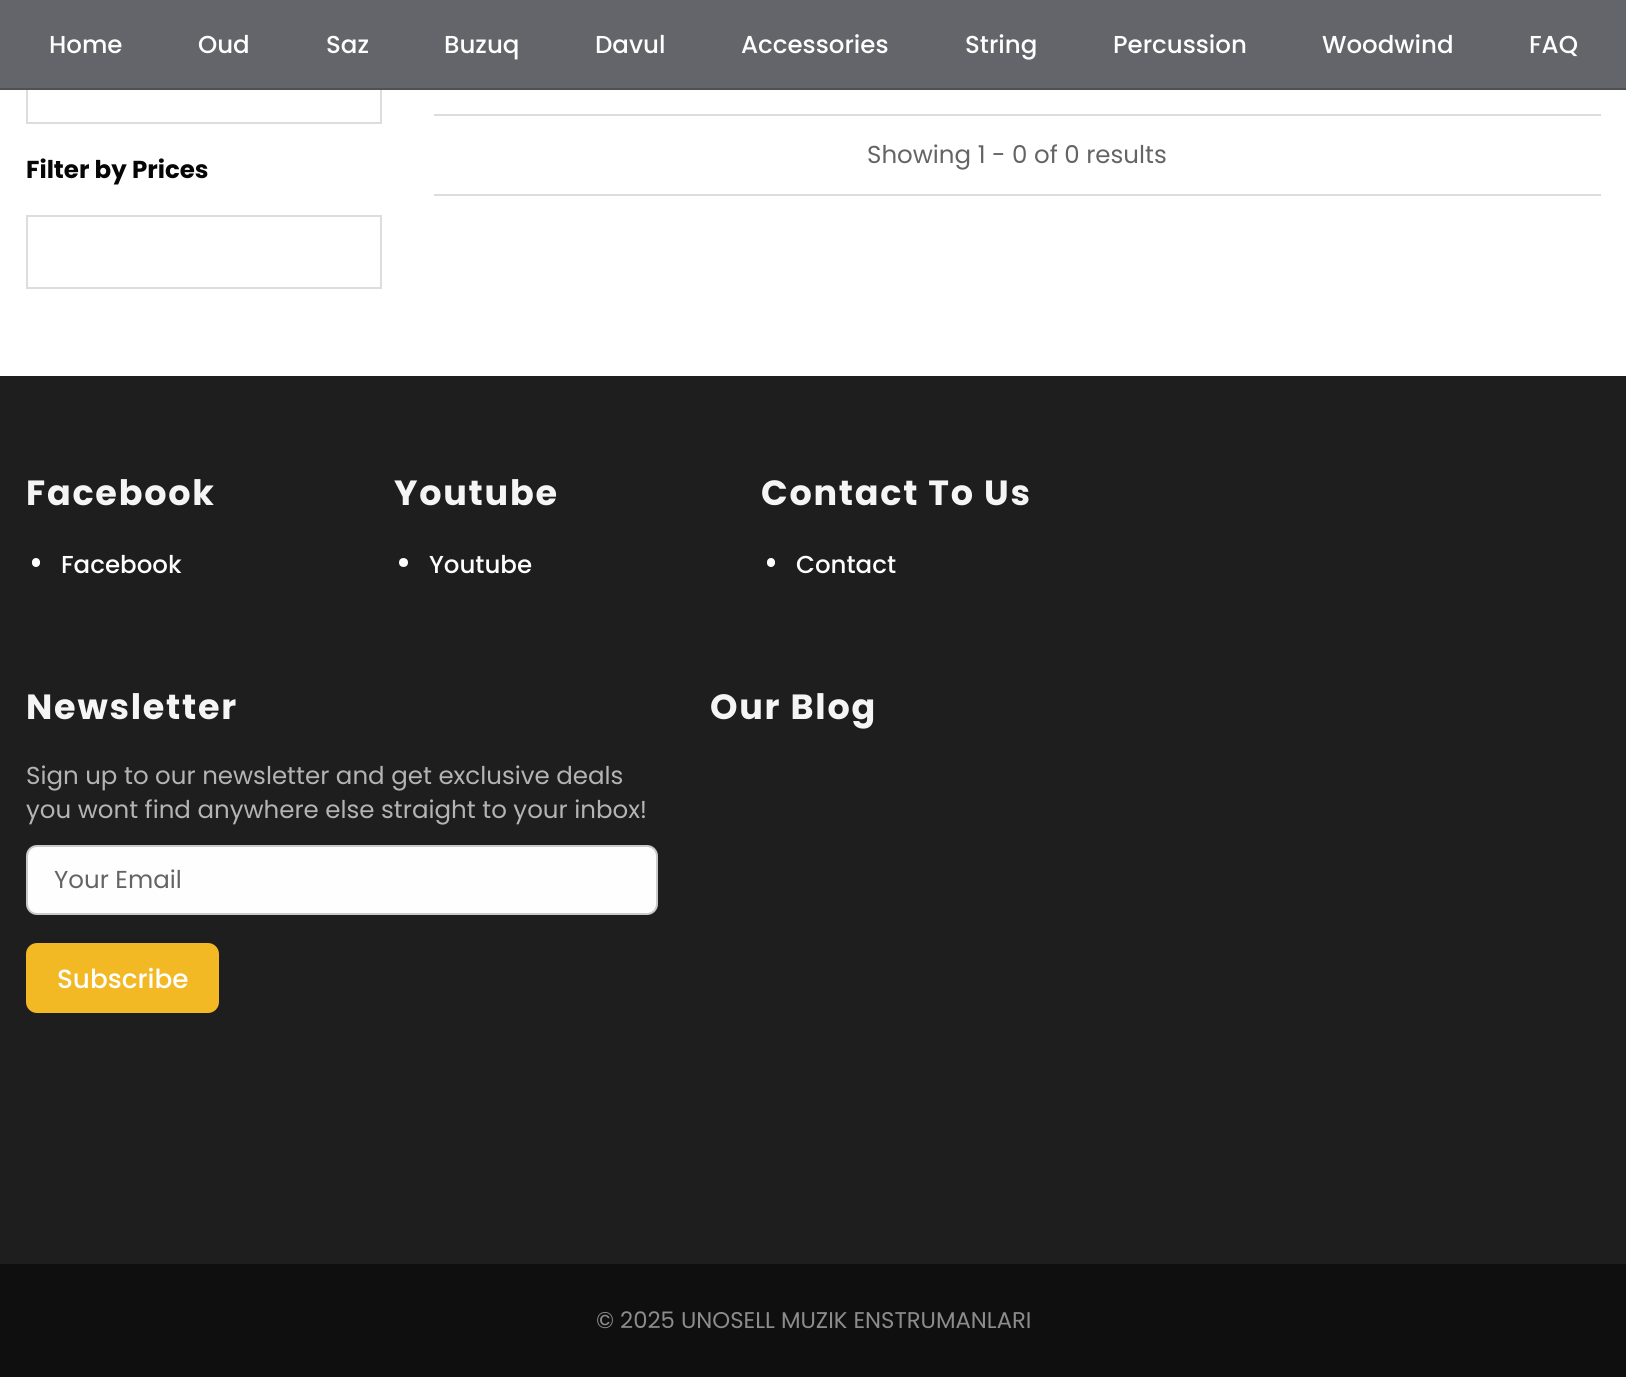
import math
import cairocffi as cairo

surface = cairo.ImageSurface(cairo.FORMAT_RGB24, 1626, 1377)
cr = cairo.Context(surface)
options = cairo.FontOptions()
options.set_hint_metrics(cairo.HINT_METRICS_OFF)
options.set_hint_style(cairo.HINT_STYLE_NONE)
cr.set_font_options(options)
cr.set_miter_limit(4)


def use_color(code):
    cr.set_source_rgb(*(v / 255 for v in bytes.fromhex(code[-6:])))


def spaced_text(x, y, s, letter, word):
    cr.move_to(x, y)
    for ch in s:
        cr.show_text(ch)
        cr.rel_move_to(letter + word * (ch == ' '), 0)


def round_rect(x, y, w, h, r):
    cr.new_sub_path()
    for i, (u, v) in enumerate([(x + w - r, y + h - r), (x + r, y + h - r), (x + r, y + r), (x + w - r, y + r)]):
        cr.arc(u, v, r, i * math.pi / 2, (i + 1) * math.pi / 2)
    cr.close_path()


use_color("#ffffff")
cr.paint()
cr.rectangle(27, 52, 354, 71)
use_color("#dddddd")
cr.stroke()
use_color("#64656a")
cr.rectangle(0, 0, 1626, 88)
cr.fill()
use_color("#4f5154")
cr.rectangle(0, 88, 1626, 2)
cr.fill()
cr.select_font_face("Poppins Medium")
cr.set_font_size(24.5)
use_color("#fefefe")
cr.move_to(49, 53)
cr.show_text("Home")
cr.move_to(198, 53)
cr.show_text("Oud")
cr.move_to(326, 53)
cr.show_text("Saz")
cr.move_to(444, 53)
cr.show_text("Buzuq")
cr.move_to(595, 53)
cr.show_text("Davul")
cr.move_to(741, 53)
cr.show_text("Accessories")
cr.move_to(965, 53)
cr.show_text("String")
cr.move_to(1113, 53)
cr.show_text("Percussion")
cr.move_to(1322, 53)
cr.show_text("Woodwind")
cr.move_to(1529, 53)
cr.show_text("FAQ")
cr.select_font_face("Poppins", cairo.FONT_SLANT_NORMAL, cairo.FONT_WEIGHT_BOLD)
use_color("#060606")
cr.move_to(26, 178)
cr.show_text("Filter by Prices")
cr.rectangle(27, 216, 354, 72)
use_color("#dddddd")
cr.stroke()
use_color("#dcdcdc")
cr.rectangle(434, 114, 1167, 2)
cr.fill()
cr.rectangle(434, 194, 1167, 2)
cr.fill()
cr.select_font_face("Poppins")
use_color("#646464")
cr.move_to(867, 163)
cr.show_text("Showing 1 - 0 of 0 results")
use_color("#1e1e1e")
cr.rectangle(0, 376, 1626, 888)
cr.fill()
cr.select_font_face("Poppins", cairo.FONT_SLANT_NORMAL, cairo.FONT_WEIGHT_BOLD)
cr.set_font_size(35)
use_color("#f5f5f5")
spaced_text(26, 505, "Facebook", 1.75, 0)
use_color("#fefefe")
round_rect(32, 558, 8, 9, 4)
cr.fill()
cr.select_font_face("Poppins Medium")
cr.set_font_size(24.5)
cr.move_to(61, 573)
cr.show_text("Facebook")
cr.select_font_face("Poppins", cairo.FONT_SLANT_NORMAL, cairo.FONT_WEIGHT_BOLD)
cr.set_font_size(35)
use_color("#f5f5f5")
spaced_text(394, 505, "Youtube", 1.75, 0)
use_color("#fefefe")
cr.new_path()
cr.arc(403.5, 562.5, 4.5, 0, 2 * math.pi)
cr.fill()
cr.select_font_face("Poppins Medium")
cr.set_font_size(24.5)
cr.move_to(429, 573)
cr.show_text("Youtube")
cr.select_font_face("Poppins", cairo.FONT_SLANT_NORMAL, cairo.FONT_WEIGHT_BOLD)
cr.set_font_size(35)
use_color("#f5f5f5")
spaced_text(761, 505, "Contact To Us", 1.75, 0)
use_color("#fefefe")
round_rect(767, 558, 8, 9, 4)
cr.fill()
cr.select_font_face("Poppins Medium")
cr.set_font_size(24.5)
cr.move_to(796, 573)
cr.show_text("Contact")
cr.select_font_face("Poppins", cairo.FONT_SLANT_NORMAL, cairo.FONT_WEIGHT_BOLD)
cr.set_font_size(35)
use_color("#f5f5f5")
spaced_text(26, 719, "Newsletter", 1.75, 0)
cr.select_font_face("Poppins")
cr.set_font_size(24.5)
use_color("#b4b4b4")
cr.move_to(26, 784)
cr.show_text("Sign up to our newsletter and get exclusive deals")
cr.move_to(26, 818)
cr.show_text("you wont find anywhere else straight to your inbox!")
use_color("#fefefe")
round_rect(27, 846, 630, 68, 10)
cr.fill_preserve()
use_color("#cacaca")
cr.stroke()
use_color("#646464")
cr.move_to(54, 888)
cr.show_text("Your Email")
use_color("#f3b924")
round_rect(26, 943, 193, 70, 11)
cr.fill()
cr.select_font_face("Poppins Medium")
cr.set_font_size(26.25)
use_color("#fefefe")
cr.move_to(57, 988)
cr.show_text("Subscribe")
cr.select_font_face("Poppins", cairo.FONT_SLANT_NORMAL, cairo.FONT_WEIGHT_BOLD)
cr.set_font_size(35)
use_color("#f5f5f5")
spaced_text(710, 719, "Our Blog", 1.75, 0)
use_color("#0f0f0f")
cr.rectangle(0, 1264, 1626, 113)
cr.fill()
cr.select_font_face("Poppins")
cr.set_font_size(22.75)
use_color("#8c8c8c")
cr.move_to(596, 1328)
cr.show_text("© 2025 UNOSELL MUZIK ENSTRUMANLARI")
surface.write_to_png("result.png")
